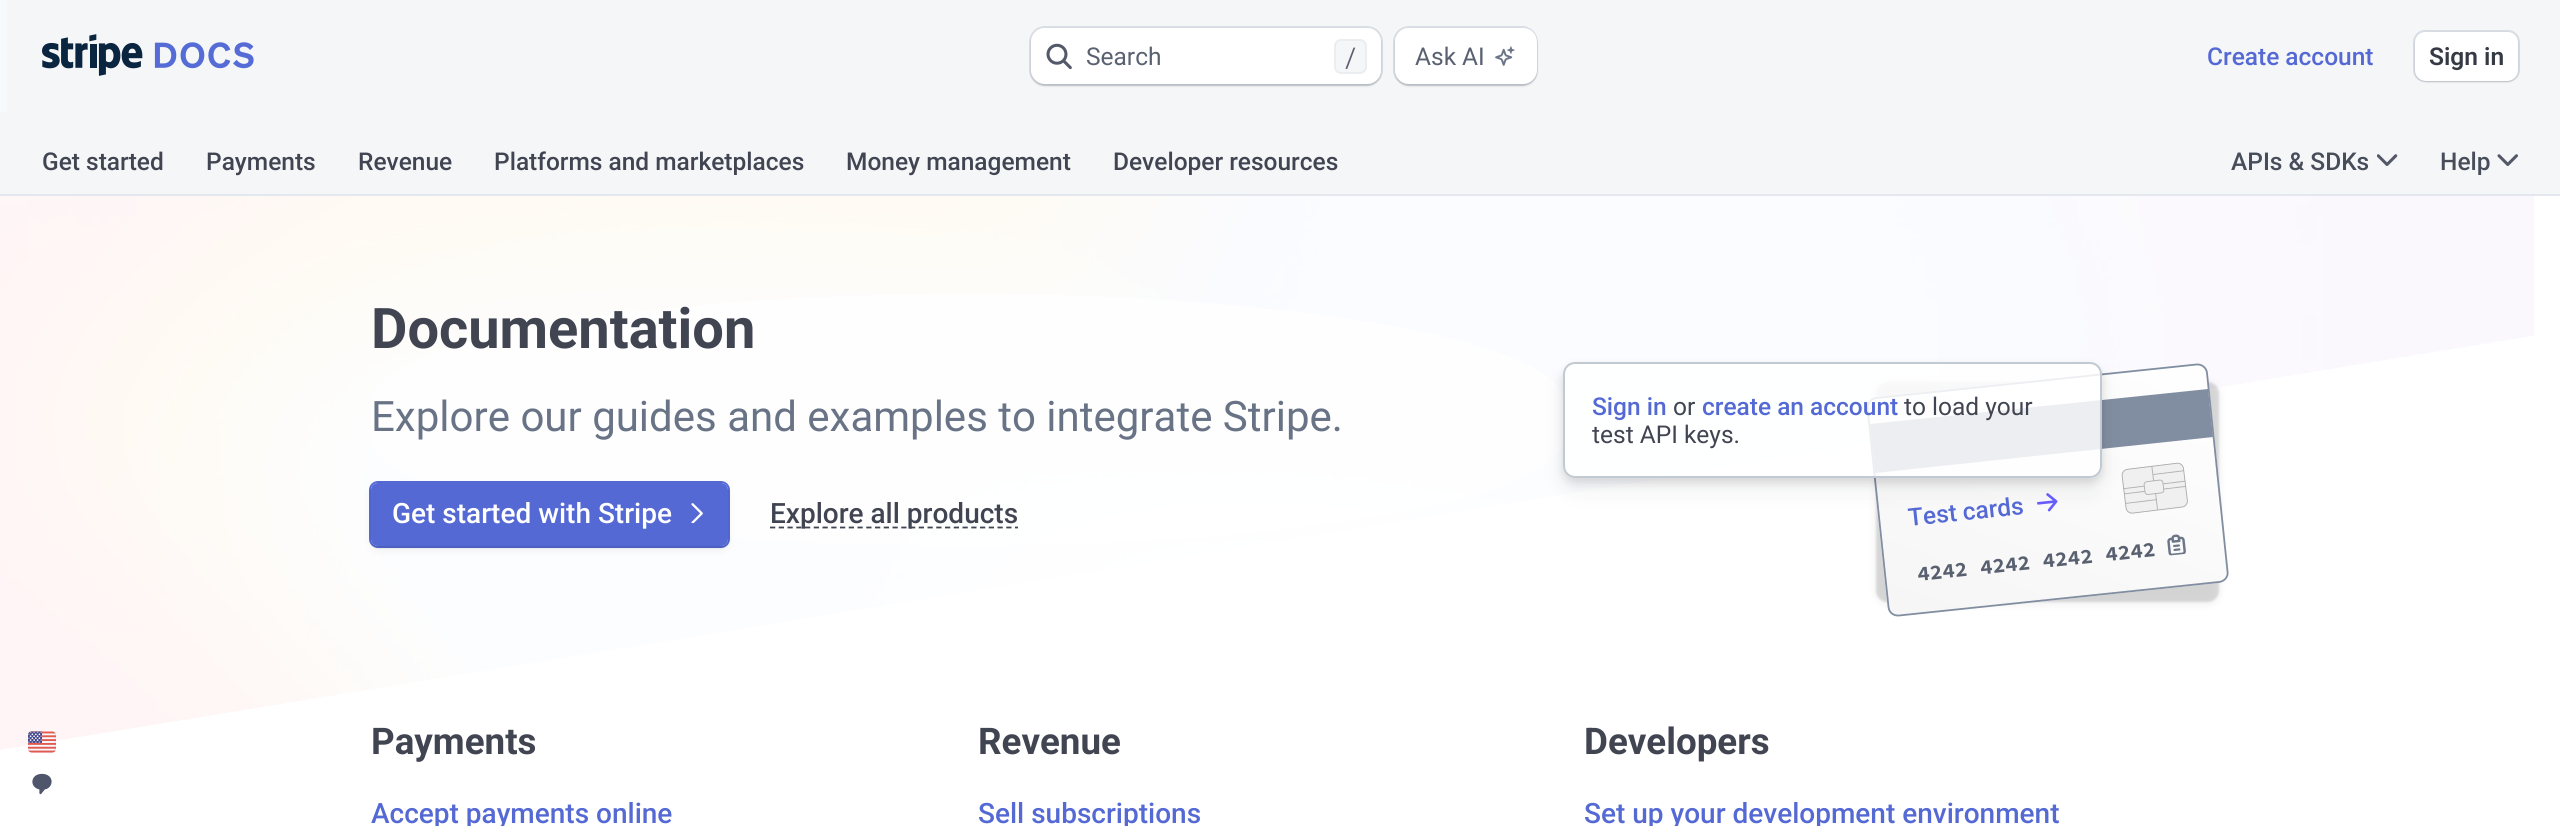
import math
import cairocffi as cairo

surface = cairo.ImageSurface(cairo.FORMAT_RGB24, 2560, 826)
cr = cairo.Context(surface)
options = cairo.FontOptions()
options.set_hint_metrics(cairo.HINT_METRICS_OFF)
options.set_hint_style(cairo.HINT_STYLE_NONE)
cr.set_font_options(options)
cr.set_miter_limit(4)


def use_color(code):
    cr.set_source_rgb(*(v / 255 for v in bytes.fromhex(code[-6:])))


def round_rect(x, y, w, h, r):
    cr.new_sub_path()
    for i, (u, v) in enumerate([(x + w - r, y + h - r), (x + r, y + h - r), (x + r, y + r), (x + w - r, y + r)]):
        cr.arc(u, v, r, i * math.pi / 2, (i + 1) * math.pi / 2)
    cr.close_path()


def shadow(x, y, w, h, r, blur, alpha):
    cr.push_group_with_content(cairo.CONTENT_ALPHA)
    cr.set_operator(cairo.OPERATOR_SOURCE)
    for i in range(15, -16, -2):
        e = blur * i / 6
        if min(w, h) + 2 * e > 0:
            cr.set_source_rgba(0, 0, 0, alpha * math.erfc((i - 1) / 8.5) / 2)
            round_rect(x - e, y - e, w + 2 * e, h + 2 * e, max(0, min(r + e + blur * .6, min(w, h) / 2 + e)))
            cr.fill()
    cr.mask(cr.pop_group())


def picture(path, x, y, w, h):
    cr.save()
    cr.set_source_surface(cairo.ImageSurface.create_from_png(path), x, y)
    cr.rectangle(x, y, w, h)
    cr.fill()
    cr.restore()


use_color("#ffffff")
cr.paint()
use_color("#f7fafc")
cr.rectangle(0, 0, 7, 112)
cr.fill()
use_color("#f5f6f8")
cr.rectangle(7, 0, 2553, 112)
cr.fill()
picture("img1.png", 42, 34, 212, 42)
round_rect(1030, 27, 352, 58, 15)
use_color("#d8dee4")
cr.stroke()
use_color("#10111a")
shadow(1031, 30, 350, 56, 14, 1, 0.16)
use_color("#ffffff")
round_rect(1031, 28, 350, 56, 14)
cr.fill()
picture("img2.png", 1046, 43, 26, 27)
cr.select_font_face("Roboto")
cr.set_font_size(24.5)
use_color("#596171")
cr.move_to(1086, 65)
cr.show_text("Search")
use_color("#f5f6f8")
round_rect(1335, 40, 31, 33, 6)
cr.fill_preserve()
use_color("#ebeef1")
cr.stroke()
cr.select_font_face("Source Code Pro")
use_color("#596171")
cr.move_to(1343, 65)
cr.show_text("/")
round_rect(1394, 27, 143, 58, 15)
use_color("#d8dee4")
cr.stroke()
use_color("#10111a")
shadow(1395, 30, 142, 56, 14, 1, 0.16)
use_color("#ffffff")
round_rect(1395, 28, 142, 56, 14)
cr.fill()
cr.select_font_face("Roboto")
use_color("#596171")
cr.move_to(1415, 65)
cr.show_text("Ask AI")
picture("img3.png", 1495, 46, 20, 20)
cr.select_font_face("Roboto Medium")
use_color("#5469d4")
cr.move_to(2207, 65)
cr.show_text("Create account")
round_rect(2414, 31, 105, 50, 11)
use_color("#d8dee4")
cr.stroke()
use_color("#10111a")
shadow(2415, 33, 103, 49, 11, 1, 0.16)
use_color("#ffffff")
round_rect(2415, 32, 103, 49, 11)
cr.fill()
cr.select_font_face("Roboto SemiBold")
use_color("#353a44")
cr.move_to(2429, 65)
cr.show_text("Sign in")
use_color("#f5f6f8")
cr.rectangle(0, 112, 2560, 82)
cr.fill()
use_color("#e3e8ee")
cr.rectangle(0, 194, 2560, 2)
cr.fill()
cr.select_font_face("Roboto Medium")
use_color("#414552")
cr.move_to(42, 170)
cr.show_text("Get started")
cr.move_to(206, 170)
cr.show_text("Payments")
cr.move_to(358, 170)
cr.show_text("Revenue")
cr.move_to(494, 170)
cr.show_text("Platforms and marketplaces")
cr.move_to(846, 170)
cr.show_text("Money management")
cr.move_to(1113, 170)
cr.show_text("Developer resources")
use_color("#474e5a")
cr.move_to(2231, 170)
cr.show_text("APIs & SDKs")
picture("img4.png", 2377, 154, 21, 12)
cr.move_to(2440, 170)
cr.show_text("Help")
picture("img5.png", 2497, 154, 21, 12)
picture("img8.png", 0, 196, 2534, 555)
picture("img6.png", 28, 731, 28, 22)
picture("img7.png", 32, 773, 20, 22)
cr.set_source_rgba(1, 1, 1, 0.75)
cr.new_path()
cr.move_to(967, 294)
cr.curve_to(1296, 294, 1563, 342, 1563, 401)
cr.line_to(1563, 439)
cr.curve_to(1563, 498, 1296, 546, 967, 546)
cr.curve_to(638, 546, 371, 498, 371, 439)
cr.line_to(371, 401)
cr.curve_to(371, 342, 638, 294, 967, 294)
cr.close_path()
cr.fill()
cr.select_font_face("Roboto", cairo.FONT_SLANT_NORMAL, cairo.FONT_WEIGHT_BOLD)
cr.set_font_size(56)
use_color("#414552")
cr.move_to(371, 348)
cr.show_text("Documentation")
cr.select_font_face("Roboto")
cr.set_font_size(42)
use_color("#697386")
cr.move_to(371, 431)
cr.show_text("Explore our guides and examples to integrate Stripe.")
use_color("#3c4257")
shadow(371, 487, 357, 63, 7, 4.5, 0.08)
round_rect(370, 482, 359, 65, 8)
use_color("#5469d4")
cr.stroke()
use_color("#000000")
shadow(371, 485, 357, 63, 7, 1, 0.12)
use_color("#5469d4")
round_rect(371, 483, 357, 63, 7)
cr.fill()
cr.select_font_face("Roboto Medium")
cr.set_font_size(28)
use_color("#ffffff")
cr.move_to(392, 523)
cr.show_text("Get started with Stripe")
picture("img9.png", 691, 503, 12, 20)
cr.new_path()
cr.move_to(770, 527.5)
cr.line_to(1018, 527.5)
use_color("#414552")
cr.set_line_width(1.8)
cr.set_dash([5.25, 3.5])
cr.stroke()
cr.move_to(770, 523)
cr.show_text("Explore all products")
use_color("#30313d")
shadow(1876, 383, 343, 221, 11, 4.5, 0.08)
use_color("#000000")
shadow(1876, 382, 343, 220, 11, 1, 0.12)
picture("img10.png", 1867, 364, 362, 251)
cr.new_path()
cr.move_to(1876, 398)
cr.line_to(2196.5, 364.5)
cr.curve_to(2201.5, 364, 2206.5, 367.5, 2207, 373)
cr.line_to(2227.5, 571.5)
cr.curve_to(2228.5, 576.5, 2224.5, 581.5, 2219, 582)
cr.line_to(1899, 615.5)
cr.curve_to(1893.5, 616, 1889, 612.5, 1888.5, 607)
cr.line_to(1867.5, 408.5)
cr.curve_to(1867, 403.5, 1871, 398.5, 1876, 398)
cr.close_path()
use_color("#818da0")
cr.set_dash([])
cr.stroke()
cr.new_path()
cr.move_to(1870, 424)
cr.line_to(2208, 389)
cr.line_to(2213, 437)
cr.line_to(1875, 473)
cr.close_path()
cr.fill()
picture("img11.png", 2037, 493, 21, 19)
cr.save()
cr.set_fill_rule(cairo.FILL_RULE_EVEN_ODD)
cr.new_path()
cr.move_to(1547, 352)
cr.line_to(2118, 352)
cr.line_to(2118, 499)
cr.line_to(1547, 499)
cr.close_path()
cr.move_to(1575, 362)
cr.line_to(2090, 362)
cr.curve_to(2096.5, 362, 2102, 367.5, 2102, 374)
cr.line_to(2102, 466)
cr.curve_to(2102, 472.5, 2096.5, 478, 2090, 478)
cr.line_to(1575, 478)
cr.curve_to(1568.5, 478, 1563, 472.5, 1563, 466)
cr.line_to(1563, 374)
cr.curve_to(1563, 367.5, 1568.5, 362, 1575, 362)
cr.close_path()
cr.clip()
use_color("#000000")
shadow(1563, 368, 539, 115, 12, 5, 0.12)
cr.restore()
picture("img12.png", 2121, 462, 67, 52)
cr.save()
cr.set_fill_rule(cairo.FILL_RULE_EVEN_ODD)
cr.new_path()
cr.move_to(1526, 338)
cr.line_to(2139, 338)
cr.line_to(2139, 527)
cr.line_to(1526, 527)
cr.close_path()
cr.move_to(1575, 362)
cr.line_to(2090, 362)
cr.curve_to(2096.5, 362, 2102, 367.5, 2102, 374)
cr.line_to(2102, 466)
cr.curve_to(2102, 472.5, 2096.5, 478, 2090, 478)
cr.line_to(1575, 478)
cr.curve_to(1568.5, 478, 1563, 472.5, 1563, 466)
cr.line_to(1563, 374)
cr.curve_to(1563, 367.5, 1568.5, 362, 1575, 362)
cr.close_path()
cr.clip()
use_color("#3c4257")
shadow(1563, 375, 539, 115, 12, 12, 0.08)
cr.restore()
cr.set_source_rgba(1, 1, 1, 0.85)
round_rect(1564, 363, 537, 114, 11)
cr.fill_preserve()
use_color("#c1c9d2")
cr.set_line_width(2)
cr.stroke()
cr.set_font_size(24.5)
use_color("#5469d4")
cr.move_to(1592, 415)
cr.show_text("Sign in")
cr.select_font_face("Roboto")
use_color("#414552")
cr.move_to(1673, 415)
cr.show_text("or")
cr.select_font_face("Roboto Medium")
use_color("#5469d4")
cr.move_to(1702, 415)
cr.show_text("create an account")
cr.select_font_face("Roboto")
use_color("#414552")
cr.move_to(1904, 415)
cr.show_text("to load your")
cr.move_to(1592, 443)
cr.show_text("test API keys.")
cr.select_font_face("Roboto Medium")
use_color("#5469d4")
cr.save()
cr.translate(1909, 526)
cr.rotate(-6 * math.pi / 180)
cr.move_to(0, 0)
cr.show_text("Test cards")
cr.restore()
cr.select_font_face("Source Code Pro", cairo.FONT_SLANT_NORMAL, cairo.FONT_WEIGHT_BOLD)
cr.set_font_size(21)
use_color("#596171")
cr.save()
cr.translate(1918, 581)
cr.rotate(-6 * math.pi / 180)
cr.move_to(0, 0)
cr.show_text("4242 4242 4242 4242")
cr.restore()
picture("img13.png", 2167, 534, 19, 22)
cr.select_font_face("Roboto", cairo.FONT_SLANT_NORMAL, cairo.FONT_WEIGHT_BOLD)
cr.set_font_size(36.75)
use_color("#414552")
cr.move_to(371, 754)
cr.show_text("Payments")
cr.select_font_face("Roboto Medium")
cr.set_font_size(28)
use_color("#5469d4")
cr.move_to(371, 823)
cr.show_text("Accept payments online")
cr.select_font_face("Roboto", cairo.FONT_SLANT_NORMAL, cairo.FONT_WEIGHT_BOLD)
cr.set_font_size(36.75)
use_color("#414552")
cr.move_to(978, 754)
cr.show_text("Revenue")
cr.select_font_face("Roboto Medium")
cr.set_font_size(28)
use_color("#5469d4")
cr.move_to(978, 823)
cr.show_text("Sell subscriptions")
cr.select_font_face("Roboto", cairo.FONT_SLANT_NORMAL, cairo.FONT_WEIGHT_BOLD)
cr.set_font_size(36.75)
use_color("#414552")
cr.move_to(1584, 754)
cr.show_text("Developers")
cr.select_font_face("Roboto Medium")
cr.set_font_size(28)
use_color("#5469d4")
cr.move_to(1584, 823)
cr.show_text("Set up your development environment")
surface.write_to_png("result.png")
